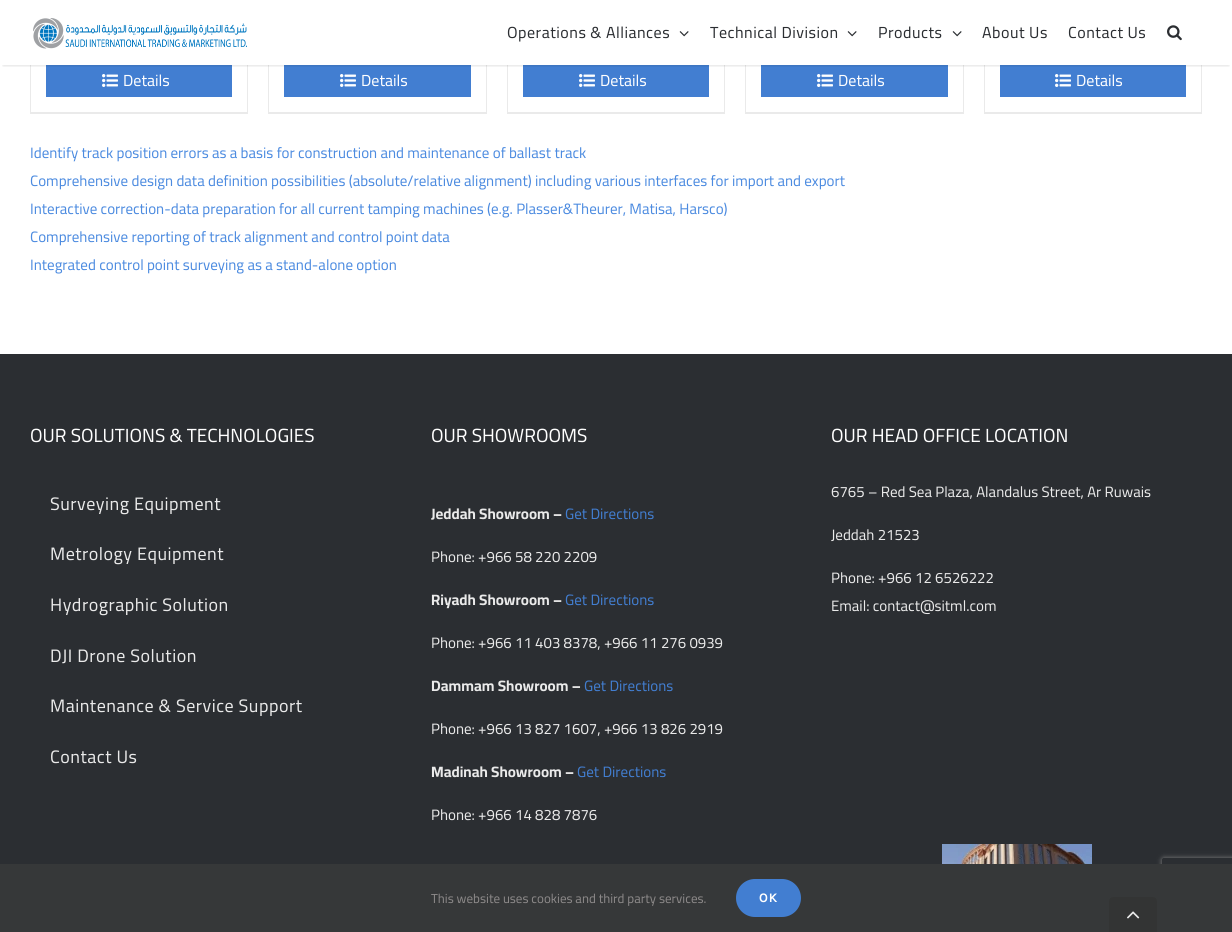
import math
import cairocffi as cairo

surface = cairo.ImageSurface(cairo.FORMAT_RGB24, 1232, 932)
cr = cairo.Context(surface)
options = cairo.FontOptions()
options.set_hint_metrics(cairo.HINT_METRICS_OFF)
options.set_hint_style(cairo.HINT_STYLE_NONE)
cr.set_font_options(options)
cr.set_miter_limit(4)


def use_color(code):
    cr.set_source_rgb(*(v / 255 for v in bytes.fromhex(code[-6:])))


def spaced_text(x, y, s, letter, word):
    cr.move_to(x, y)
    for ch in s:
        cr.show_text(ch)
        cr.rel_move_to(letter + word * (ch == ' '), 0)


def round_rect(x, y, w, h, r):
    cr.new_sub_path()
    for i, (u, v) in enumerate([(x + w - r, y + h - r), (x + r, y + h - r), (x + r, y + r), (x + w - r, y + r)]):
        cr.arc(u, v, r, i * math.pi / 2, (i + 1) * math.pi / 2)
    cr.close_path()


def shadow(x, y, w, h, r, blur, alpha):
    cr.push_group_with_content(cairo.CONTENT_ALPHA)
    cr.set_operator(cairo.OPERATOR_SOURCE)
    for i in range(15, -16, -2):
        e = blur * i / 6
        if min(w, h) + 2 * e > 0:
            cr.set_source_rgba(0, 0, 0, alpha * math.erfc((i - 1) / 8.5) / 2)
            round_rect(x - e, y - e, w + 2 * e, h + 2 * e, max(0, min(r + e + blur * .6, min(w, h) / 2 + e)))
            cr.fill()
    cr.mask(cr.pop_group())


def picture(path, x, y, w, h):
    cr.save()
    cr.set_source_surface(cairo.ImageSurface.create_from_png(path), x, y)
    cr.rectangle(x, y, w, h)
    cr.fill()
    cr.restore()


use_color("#ffffff")
cr.paint()
use_color("#eaeaea")
cr.rectangle(247, 65, 1, 49)
cr.fill()
cr.rectangle(30, 112, 218, 2)
cr.fill()
cr.rectangle(30, 65, 1, 49)
cr.fill()
use_color("#427ed1")
cr.rectangle(46, 65, 186, 32)
cr.fill()
use_color("#eaeaea")
cr.rectangle(486, 65, 1, 49)
cr.fill()
cr.rectangle(268, 112, 219, 2)
cr.fill()
cr.rectangle(268, 65, 1, 49)
cr.fill()
use_color("#427ed1")
cr.rectangle(284, 65, 187, 32)
cr.fill()
use_color("#eaeaea")
cr.rectangle(724, 65, 1, 49)
cr.fill()
cr.rectangle(507, 112, 218, 2)
cr.fill()
cr.rectangle(507, 65, 1, 49)
cr.fill()
use_color("#427ed1")
cr.rectangle(523, 65, 186, 32)
cr.fill()
use_color("#eaeaea")
cr.rectangle(963, 65, 1, 49)
cr.fill()
cr.rectangle(745, 112, 219, 2)
cr.fill()
cr.rectangle(745, 65, 1, 49)
cr.fill()
use_color("#427ed1")
cr.rectangle(761, 65, 187, 32)
cr.fill()
use_color("#eaeaea")
cr.rectangle(1201, 65, 1, 49)
cr.fill()
cr.rectangle(984, 112, 218, 2)
cr.fill()
cr.rectangle(984, 65, 1, 49)
cr.fill()
use_color("#427ed1")
cr.rectangle(1000, 65, 186, 32)
cr.fill()
cr.save()
cr.rectangle(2, 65, 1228, 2)
cr.clip()
use_color("#000000")
shadow(3, 7, 1226, 59, 0, 1.5, 0.12)
cr.restore()
picture("img1.png", 33, 18, 214, 31)
cr.select_font_face("Cairo")
cr.set_font_size(16)
use_color("#2b2e32")
spaced_text(507, 38, "Operations & Alliances", 0.5, 0)
picture("img2.png", 679, 31, 10, 6)
spaced_text(710, 38, "Technical Division", 0.5, 0)
picture("img2.png", 847, 31, 10, 6)
spaced_text(878, 38, "Products", 0.5, 0)
picture("img2.png", 952, 31, 10, 6)
spaced_text(982, 38, "About Us", 0.5, 0)
spaced_text(1068, 38, "Contact Us", 0.5, 0)
picture("img3.png", 1167, 25, 15, 16)
picture("img4.png", 102, 74, 16, 13)
use_color("#ffffff")
cr.move_to(123, 86)
cr.show_text("Details")
picture("img4.png", 340, 74, 16, 13)
cr.move_to(361, 86)
cr.show_text("Details")
picture("img4.png", 579, 74, 16, 13)
cr.move_to(600, 86)
cr.show_text("Details")
picture("img4.png", 817, 74, 16, 13)
cr.move_to(838, 86)
cr.show_text("Details")
picture("img4.png", 1055, 74, 16, 13)
cr.move_to(1076, 86)
cr.show_text("Details")
cr.set_font_size(15)
use_color("#4c8be0")
cr.move_to(30, 158)
cr.show_text("Identify track position errors as a basis for construction and maintenance of ballast track")
cr.move_to(30, 186)
cr.show_text("Comprehensive design data definition possibilities (absolute/relative alignment) including various interfaces for import and export")
cr.move_to(30, 214)
cr.show_text("Interactive correction-data preparation for all current tamping machines (e.g. Plasser&Theurer, Matisa, Harsco)")
cr.move_to(30, 242)
cr.show_text("Comprehensive reporting of track alignment and control point data")
cr.move_to(30, 270)
cr.show_text("Integrated control point surveying as a stand-alone option")
use_color("#2b2e32")
cr.rectangle(0, 354, 1232, 510)
cr.fill()
cr.set_font_size(19)
use_color("#ffffff")
cr.move_to(30, 442)
cr.show_text("OUR SOLUTIONS & TECHNOLOGIES")
cr.set_font_size(18)
use_color("#eaeaea")
spaced_text(50, 510, "Surveying Equipment", 0.5, 0)
spaced_text(50, 560, "Metrology Equipment", 0.5, 0)
spaced_text(50, 611, "Hydrographic Solution", 0.5, 0)
spaced_text(50, 662, "DJI Drone Solution", 0.5, 0)
spaced_text(50, 712, "Maintenance & Service Support", 0.5, 0)
spaced_text(50, 763, "Contact Us", 0.5, 0)
cr.set_font_size(19)
use_color("#ffffff")
cr.move_to(431, 442)
cr.show_text("OUR SHOWROOMS")
cr.select_font_face("Cairo", cairo.FONT_SLANT_NORMAL, cairo.FONT_WEIGHT_BOLD)
cr.set_font_size(15)
use_color("#eaeaea")
cr.move_to(431, 519)
cr.show_text("Jeddah Showroom –")
cr.select_font_face("Cairo")
use_color("#427ed1")
cr.move_to(565, 519)
cr.show_text("Get Directions")
use_color("#eaeaea")
cr.move_to(431, 562)
cr.show_text("Phone: +966 58 220 2209")
cr.select_font_face("Cairo", cairo.FONT_SLANT_NORMAL, cairo.FONT_WEIGHT_BOLD)
cr.move_to(431, 605)
cr.show_text("Riyadh Showroom –")
cr.select_font_face("Cairo")
use_color("#427ed1")
cr.move_to(565, 605)
cr.show_text("Get Directions")
use_color("#eaeaea")
cr.move_to(431, 648)
cr.show_text("Phone: +966 11 403 8378, +966 11 276 0939")
cr.select_font_face("Cairo", cairo.FONT_SLANT_NORMAL, cairo.FONT_WEIGHT_BOLD)
cr.move_to(431, 691)
cr.show_text("Dammam Showroom –")
cr.select_font_face("Cairo")
use_color("#427ed1")
cr.move_to(584, 691)
cr.show_text("Get Directions")
use_color("#eaeaea")
cr.move_to(431, 734)
cr.show_text("Phone: +966 13 827 1607, +966 13 826 2919")
cr.select_font_face("Cairo", cairo.FONT_SLANT_NORMAL, cairo.FONT_WEIGHT_BOLD)
cr.move_to(431, 777)
cr.show_text("Madinah Showroom –")
cr.select_font_face("Cairo")
use_color("#427ed1")
cr.move_to(577, 777)
cr.show_text("Get Directions")
use_color("#eaeaea")
cr.move_to(431, 820)
cr.show_text("Phone: +966 14 828 7876")
cr.set_font_size(19)
use_color("#ffffff")
cr.move_to(831, 442)
cr.show_text("OUR HEAD OFFICE LOCATION")
cr.set_font_size(15)
use_color("#eaeaea")
cr.move_to(831, 497)
cr.show_text("6765 – Red Sea Plaza, Alandalus Street, Ar Ruwais")
cr.move_to(831, 540)
cr.show_text("Jeddah 21523")
cr.move_to(831, 583)
cr.show_text("Phone: +966 12 6526222")
cr.move_to(831, 611)
cr.show_text("Email: contact@sitml.com")
picture("img5.png", 942, 844, 150, 20)
cr.save()
cr.set_fill_rule(cairo.FILL_RULE_EVEN_ODD)
cr.new_path()
cr.move_to(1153, 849)
cr.line_to(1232, 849)
cr.line_to(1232, 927)
cr.line_to(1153, 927)
cr.close_path()
cr.move_to(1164, 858)
cr.line_to(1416, 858)
cr.curve_to(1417, 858, 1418, 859, 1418, 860)
cr.line_to(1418, 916)
cr.curve_to(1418, 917, 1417, 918, 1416, 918)
cr.line_to(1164, 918)
cr.curve_to(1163, 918, 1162, 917, 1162, 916)
cr.line_to(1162, 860)
cr.curve_to(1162, 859, 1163, 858, 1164, 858)
cr.close_path()
cr.clip()
use_color("#808080")
shadow(1162, 858, 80, 60, 2, 2.5, 1)
cr.restore()
use_color("#363839")
cr.rectangle(0, 864, 1232, 68)
cr.fill()
cr.set_font_size(13)
use_color("#8c8989")
cr.move_to(431, 903)
cr.show_text("This website uses cookies and third party services.")
use_color("#427ed1")
round_rect(736, 879, 65, 38, 19)
cr.fill()
cr.select_font_face("Karla", cairo.FONT_SLANT_NORMAL, cairo.FONT_WEIGHT_BOLD)
use_color("#ffffff")
spaced_text(759, 902, "OK", 1, 0)
use_color("#333434")
cr.new_path()
cr.move_to(1113, 897)
cr.line_to(1153, 897)
cr.curve_to(1155, 897, 1157, 899, 1157, 901)
cr.line_to(1157, 932)
cr.line_to(1109, 932)
cr.line_to(1109, 901)
cr.curve_to(1109, 899, 1111, 897, 1113, 897)
cr.close_path()
cr.fill()
picture("img6.png", 1127, 911, 13, 8)
surface.write_to_png("result.png")
